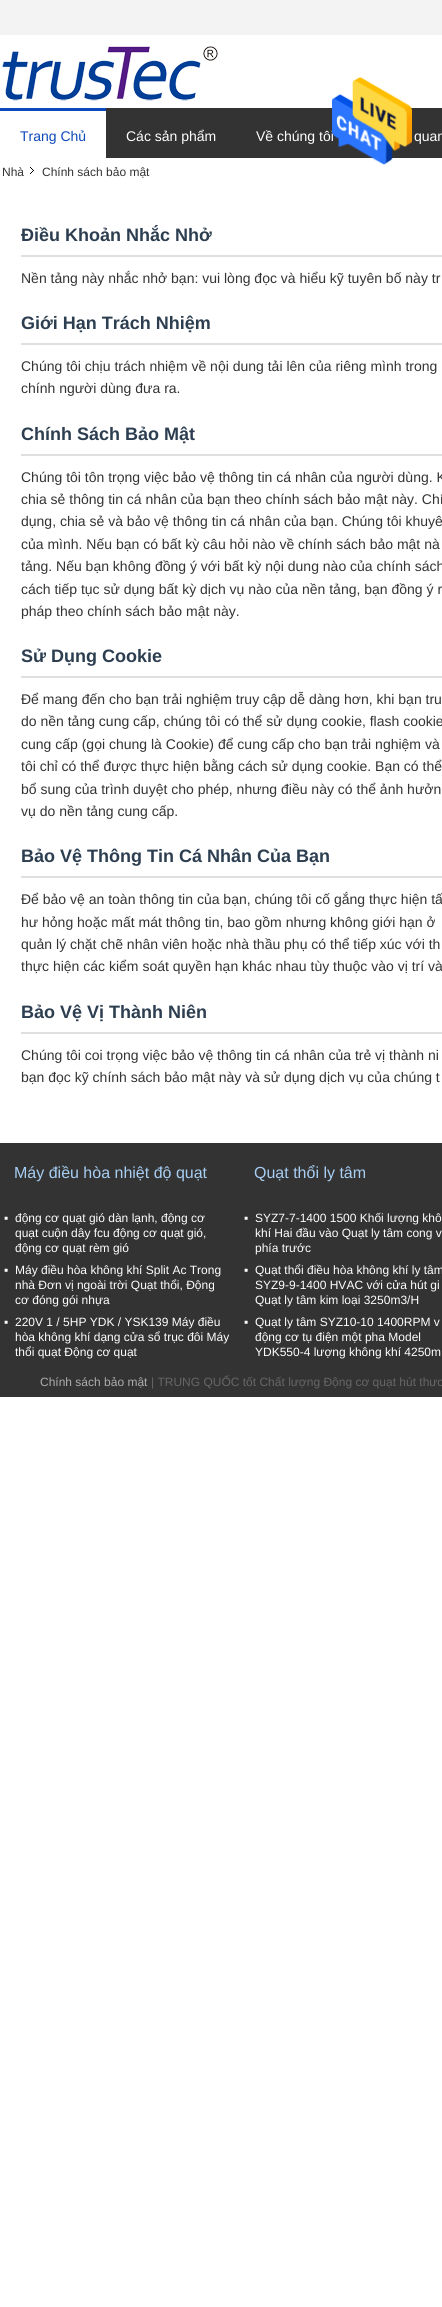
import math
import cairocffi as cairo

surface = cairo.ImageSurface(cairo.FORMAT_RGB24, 442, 2307)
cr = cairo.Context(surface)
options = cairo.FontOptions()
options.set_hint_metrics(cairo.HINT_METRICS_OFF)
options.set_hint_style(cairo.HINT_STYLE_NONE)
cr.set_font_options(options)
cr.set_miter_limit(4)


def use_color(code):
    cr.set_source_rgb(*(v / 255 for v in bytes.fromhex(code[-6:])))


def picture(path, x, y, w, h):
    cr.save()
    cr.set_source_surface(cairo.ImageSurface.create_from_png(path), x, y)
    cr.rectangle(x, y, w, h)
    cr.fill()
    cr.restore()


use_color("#ffffff")
cr.paint()
use_color("#333333")
cr.rectangle(106, 108, 336, 50)
cr.fill()
cr.select_font_face("Liberation Sans")
cr.set_font_size(14)
use_color("#ffffff")
cr.move_to(256, 141)
cr.show_text("Về chúng tôi")
picture("img1.png", 332, 77, 80, 88)
use_color("#f3f3f3")
cr.rectangle(0, 0, 442, 35)
cr.fill()
picture("img2.png", 2, 46, 216, 55)
use_color("#0e49bb")
cr.rectangle(0, 108, 106, 3)
cr.fill()
cr.move_to(20, 141)
cr.show_text("Trang Chủ")
use_color("#ffffff")
cr.move_to(126, 141)
cr.show_text("Các sản phẩm")
cr.move_to(414, 141)
cr.show_text("quan")
picture("img3.png", 30, 167, 4, 7)
cr.set_font_size(12)
use_color("#333333")
cr.move_to(2, 176)
cr.show_text("Nhà")
cr.move_to(42, 176)
cr.show_text("Chính sách bảo mật")
use_color("#e0e0e0")
cr.rectangle(21, 255, 421, 2)
cr.fill()
cr.select_font_face("Liberation Sans", cairo.FONT_SLANT_NORMAL, cairo.FONT_WEIGHT_BOLD)
cr.set_font_size(18)
use_color("#2c3e50")
cr.move_to(21, 241)
cr.show_text("Điều Khoản Nhắc Nhở")
cr.select_font_face("Liberation Sans")
cr.set_font_size(14)
use_color("#333333")
cr.move_to(21, 283)
cr.show_text("Nền tảng này nhắc nhở bạn: vui lòng đọc và hiểu kỹ tuyên bố này tr")
use_color("#e0e0e0")
cr.rectangle(21, 343, 421, 2)
cr.fill()
cr.select_font_face("Liberation Sans", cairo.FONT_SLANT_NORMAL, cairo.FONT_WEIGHT_BOLD)
cr.set_font_size(18)
use_color("#2c3e50")
cr.move_to(21, 329)
cr.show_text("Giới Hạn Trách Nhiệm")
cr.select_font_face("Liberation Sans")
cr.set_font_size(14)
use_color("#333333")
cr.move_to(21, 371)
cr.show_text("Chúng tôi chịu trách nhiệm về nội dung tải lên của riêng mình trong")
cr.move_to(21, 393)
cr.show_text("chính người dùng đưa ra.")
use_color("#e0e0e0")
cr.rectangle(21, 454, 421, 2)
cr.fill()
cr.select_font_face("Liberation Sans", cairo.FONT_SLANT_NORMAL, cairo.FONT_WEIGHT_BOLD)
cr.set_font_size(18)
use_color("#2c3e50")
cr.move_to(21, 440)
cr.show_text("Chính Sách Bảo Mật")
cr.select_font_face("Liberation Sans")
cr.set_font_size(14)
use_color("#333333")
cr.move_to(21, 482)
cr.show_text("Chúng tôi tôn trọng việc bảo vệ thông tin cá nhân của người dùng. K")
cr.move_to(21, 504)
cr.show_text("chia sẻ thông tin cá nhân của bạn theo chính sách bảo mật này. Chí")
cr.move_to(21, 526)
cr.show_text("dụng, chia sẻ và bảo vệ thông tin cá nhân của bạn. Chúng tôi khuyê")
cr.move_to(21, 549)
cr.show_text("của mình. Nếu bạn có bất kỳ câu hỏi nào về chính sách bảo mật nà")
cr.move_to(21, 571)
cr.show_text("tảng. Nếu bạn không đồng ý với bất kỳ nội dung nào của chính sách")
cr.move_to(21, 594)
cr.show_text("cách tiếp tục sử dụng bất kỳ dịch vụ nào của nền tảng, bạn đồng ý r")
cr.move_to(21, 616)
cr.show_text("pháp theo chính sách bảo mật này.")
use_color("#e0e0e0")
cr.rectangle(21, 676, 421, 2)
cr.fill()
cr.select_font_face("Liberation Sans", cairo.FONT_SLANT_NORMAL, cairo.FONT_WEIGHT_BOLD)
cr.set_font_size(18)
use_color("#2c3e50")
cr.move_to(21, 662)
cr.show_text("Sử Dụng Cookie")
cr.select_font_face("Liberation Sans")
cr.set_font_size(14)
use_color("#333333")
cr.move_to(21, 704)
cr.show_text("Để mang đến cho bạn trải nghiệm truy cập dễ dàng hơn, khi bạn tru")
cr.move_to(21, 726)
cr.show_text("do nền tảng cung cấp, chúng tôi có thể sử dụng cookie, flash cookie")
cr.move_to(21, 749)
cr.show_text("cung cấp (gọi chung là Cookie) để cung cấp cho bạn trải nghiệm và")
cr.move_to(21, 771)
cr.show_text("tôi chỉ có thể được thực hiện bằng cách sử dụng cookie. Bạn có thể")
cr.move_to(21, 794)
cr.show_text("bổ sung của trình duyệt cho phép, nhưng điều này có thể ảnh hưởn")
cr.move_to(21, 816)
cr.show_text("vụ do nền tảng cung cấp.")
use_color("#e0e0e0")
cr.rectangle(21, 876, 421, 2)
cr.fill()
cr.select_font_face("Liberation Sans", cairo.FONT_SLANT_NORMAL, cairo.FONT_WEIGHT_BOLD)
cr.set_font_size(18)
use_color("#2c3e50")
cr.move_to(21, 862)
cr.show_text("Bảo Vệ Thông Tin Cá Nhân Của Bạn")
cr.select_font_face("Liberation Sans")
cr.set_font_size(14)
use_color("#333333")
cr.move_to(21, 904)
cr.show_text("Để bảo vệ an toàn thông tin của bạn, chúng tôi cố gắng thực hiện tấ")
cr.move_to(21, 927)
cr.show_text("hư hỏng hoặc mất mát thông tin, bao gồm nhưng không giới hạn ở")
cr.move_to(21, 949)
cr.show_text("quản lý chặt chẽ nhân viên hoặc nhà thầu phụ có thể tiếp xúc với th")
cr.move_to(21, 971)
cr.show_text("thực hiện các kiểm soát quyền hạn khác nhau tùy thuộc vào vị trí và")
use_color("#e0e0e0")
cr.rectangle(21, 1032, 421, 2)
cr.fill()
cr.select_font_face("Liberation Sans", cairo.FONT_SLANT_NORMAL, cairo.FONT_WEIGHT_BOLD)
cr.set_font_size(18)
use_color("#2c3e50")
cr.move_to(21, 1018)
cr.show_text("Bảo Vệ Vị Thành Niên")
cr.select_font_face("Liberation Sans")
cr.set_font_size(14)
use_color("#333333")
cr.move_to(21, 1060)
cr.show_text("Chúng tôi coi trọng việc bảo vệ thông tin cá nhân của trẻ vị thành ni")
cr.move_to(21, 1082)
cr.show_text("bạn đọc kỹ chính sách bảo mật này và sử dụng dịch vụ của chúng t")
cr.rectangle(0, 1143, 442, 254)
cr.fill()
cr.set_font_size(16)
use_color("#a7cef3")
cr.move_to(14, 1178)
cr.show_text("Máy điều hòa nhiệt độ quạt")
cr.set_font_size(12)
use_color("#ffffff")
cr.move_to(4, 1222)
cr.show_text("▪")
cr.move_to(15, 1222)
cr.show_text("động cơ quạt gió dàn lạnh, động cơ")
cr.move_to(15, 1237)
cr.show_text("quạt cuộn dây fcu động cơ quạt gió,")
cr.move_to(15, 1252)
cr.show_text("động cơ quạt rèm gió")
cr.move_to(4, 1274)
cr.show_text("▪")
cr.move_to(15, 1274)
cr.show_text("Máy điều hòa không khí Split Ac Trong")
cr.move_to(15, 1289)
cr.show_text("nhà Đơn vị ngoài trời Quạt thổi, Động")
cr.move_to(15, 1304)
cr.show_text("cơ đóng gói nhựa")
cr.move_to(4, 1326)
cr.show_text("▪")
cr.move_to(15, 1326)
cr.show_text("220V 1 / 5HP YDK / YSK139 Máy điều")
cr.move_to(15, 1341)
cr.show_text("hòa không khí dạng cửa sổ trục đôi Máy")
cr.move_to(15, 1356)
cr.show_text("thổi quạt Động cơ quạt")
cr.set_font_size(16)
use_color("#a7cef3")
cr.move_to(254, 1178)
cr.show_text("Quạt thổi ly tâm")
cr.set_font_size(12)
use_color("#ffffff")
cr.move_to(244, 1222)
cr.show_text("▪")
cr.move_to(255, 1222)
cr.show_text("SYZ7-7-1400 1500 Khối lượng khô")
cr.move_to(255, 1237)
cr.show_text("khí Hai đầu vào Quạt ly tâm cong v")
cr.move_to(255, 1252)
cr.show_text("phía trước")
cr.move_to(244, 1274)
cr.show_text("▪")
cr.move_to(255, 1274)
cr.show_text("Quạt thổi điều hòa không khí ly tâm")
cr.move_to(255, 1289)
cr.show_text("SYZ9-9-1400 HVAC với cửa hút gi")
cr.move_to(255, 1304)
cr.show_text("Quạt ly tâm kim loại 3250m3/H")
cr.move_to(244, 1326)
cr.show_text("▪")
cr.move_to(255, 1326)
cr.show_text("Quạt ly tâm SYZ10-10 1400RPM v")
cr.move_to(255, 1341)
cr.show_text("động cơ tụ điện một pha Model")
cr.move_to(255, 1356)
cr.show_text("YDK550-4 lượng không khí 4250m")
use_color("#adadad")
cr.move_to(40, 1386)
cr.show_text("Chính sách bảo mật")
use_color("#666666")
cr.move_to(151, 1386)
cr.show_text("| TRUNG QUỐC tốt Chất lượng Động cơ quạt hút thươ")
surface.write_to_png("result.png")
